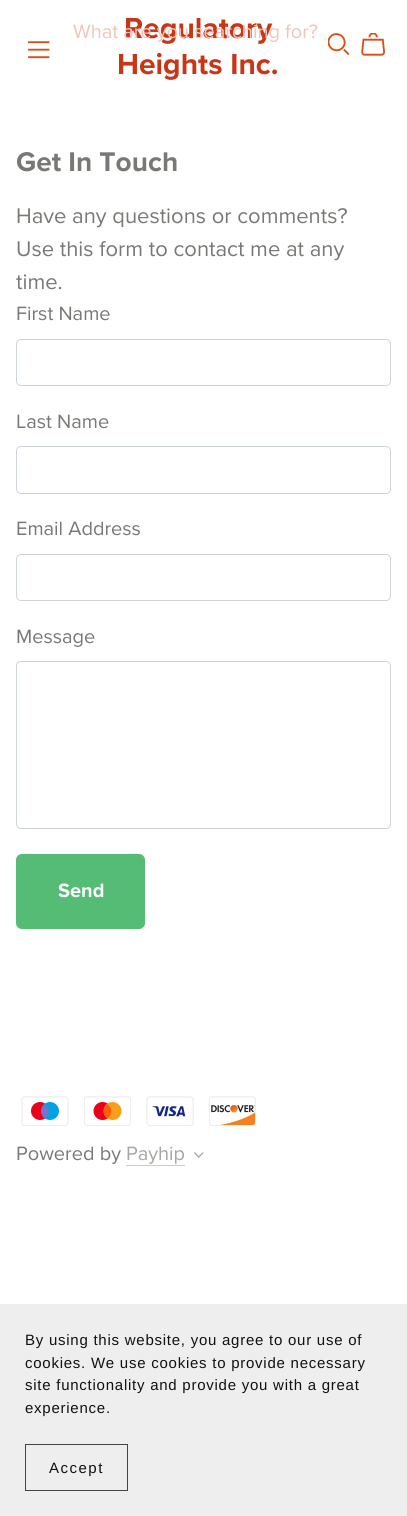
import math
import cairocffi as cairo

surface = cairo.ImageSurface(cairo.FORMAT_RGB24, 407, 1516)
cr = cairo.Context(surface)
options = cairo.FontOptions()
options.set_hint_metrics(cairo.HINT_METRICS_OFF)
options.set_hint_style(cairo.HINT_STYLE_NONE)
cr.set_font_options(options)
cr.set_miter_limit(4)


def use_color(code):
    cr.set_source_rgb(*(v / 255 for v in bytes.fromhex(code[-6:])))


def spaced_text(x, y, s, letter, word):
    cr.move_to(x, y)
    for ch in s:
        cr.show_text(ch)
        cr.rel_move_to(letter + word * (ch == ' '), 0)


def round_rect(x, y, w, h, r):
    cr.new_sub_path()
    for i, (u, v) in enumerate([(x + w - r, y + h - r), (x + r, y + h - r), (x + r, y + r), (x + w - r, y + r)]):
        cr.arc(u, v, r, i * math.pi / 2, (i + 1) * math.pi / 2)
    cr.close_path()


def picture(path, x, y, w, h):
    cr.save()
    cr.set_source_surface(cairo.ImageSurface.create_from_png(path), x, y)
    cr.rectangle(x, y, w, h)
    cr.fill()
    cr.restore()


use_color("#ffffff")
cr.paint()
cr.select_font_face("Proxima Nova", cairo.FONT_SLANT_NORMAL, cairo.FONT_WEIGHT_BOLD)
cr.set_font_size(30)
use_color("#c93616")
cr.move_to(124, 38)
cr.show_text("Regulatory")
cr.move_to(117, 74)
cr.show_text("Heights Inc.")
cr.select_font_face("Proxima Nova")
cr.set_font_size(20)
use_color("#efc4bb")
cr.move_to(73, 38)
cr.show_text("What are you searching for?")
picture("img1.png", 328, 33, 22, 22)
picture("img2.png", 361, 33, 24, 23)
picture("img3.png", 28, 41, 22, 18)
cr.select_font_face("Proxima Nova", cairo.FONT_SLANT_NORMAL, cairo.FONT_WEIGHT_BOLD)
cr.set_font_size(28)
use_color("#797875")
cr.move_to(16, 171)
cr.show_text("Get In Touch")
cr.select_font_face("Proxima Nova")
cr.set_font_size(22)
cr.move_to(16, 223)
cr.show_text("Have any questions or comments?")
cr.move_to(16, 256)
cr.show_text("Use this form to contact me at any")
cr.move_to(16, 289)
cr.show_text("time.")
cr.set_font_size(20)
cr.move_to(16, 320)
cr.show_text("First Name")
round_rect(16.5, 339.5, 374, 46, 4.5)
use_color("#ced4da")
cr.set_line_width(1)
cr.stroke()
use_color("#797875")
cr.move_to(16, 428)
cr.show_text("Last Name")
round_rect(16.5, 446.5, 374, 47, 4.5)
use_color("#ced4da")
cr.stroke()
use_color("#797875")
cr.move_to(16, 535)
cr.show_text("Email Address")
round_rect(16.5, 554.5, 374, 46, 4.5)
use_color("#ced4da")
cr.stroke()
use_color("#797875")
cr.move_to(16, 643)
cr.show_text("Message")
round_rect(16.5, 661.5, 374, 167, 4.5)
use_color("#ced4da")
cr.stroke()
use_color("#55bc75")
round_rect(16.5, 854.5, 128, 74, 5.5)
cr.fill_preserve()
cr.stroke()
cr.select_font_face("Proxima Nova", cairo.FONT_SLANT_NORMAL, cairo.FONT_WEIGHT_BOLD)
use_color("#ffffff")
cr.move_to(58, 897)
cr.show_text("Send")
picture("img4.png", 21, 1096, 48, 30)
picture("img5.png", 84, 1096, 47, 30)
picture("img6.png", 146, 1096, 48, 30)
picture("img7.png", 209, 1096, 47, 30)
cr.select_font_face("Proxima Nova")
use_color("#797875")
cr.move_to(16, 1160)
cr.show_text("Powered by")
use_color("#a8a6a1")
cr.move_to(126, 1160)
cr.show_text("Payhip")
use_color("#cccccc")
cr.rectangle(126, 1165, 59, 1)
cr.fill()
picture("img8.png", 194, 1152, 10, 6)
use_color("#eeeeee")
cr.rectangle(0, 1304, 407, 212)
cr.fill()
cr.select_font_face("Liberation Sans")
cr.set_font_size(15)
use_color("#111111")
spaced_text(25, 1345, "By using this website, you agree to our use of", 0.75, 0)
spaced_text(25, 1368, "cookies. We use cookies to provide necessary", 0.75, 0)
spaced_text(25, 1390, "site functionality and provide you with a great", 0.75, 0)
spaced_text(25, 1413, "experience.", 0.75, 0)
cr.rectangle(25.5, 1444.5, 102, 46)
use_color("#444444")
cr.stroke()
use_color("#111111")
spaced_text(49, 1473, "Accept", 1.5, 0)
surface.write_to_png("result.png")
